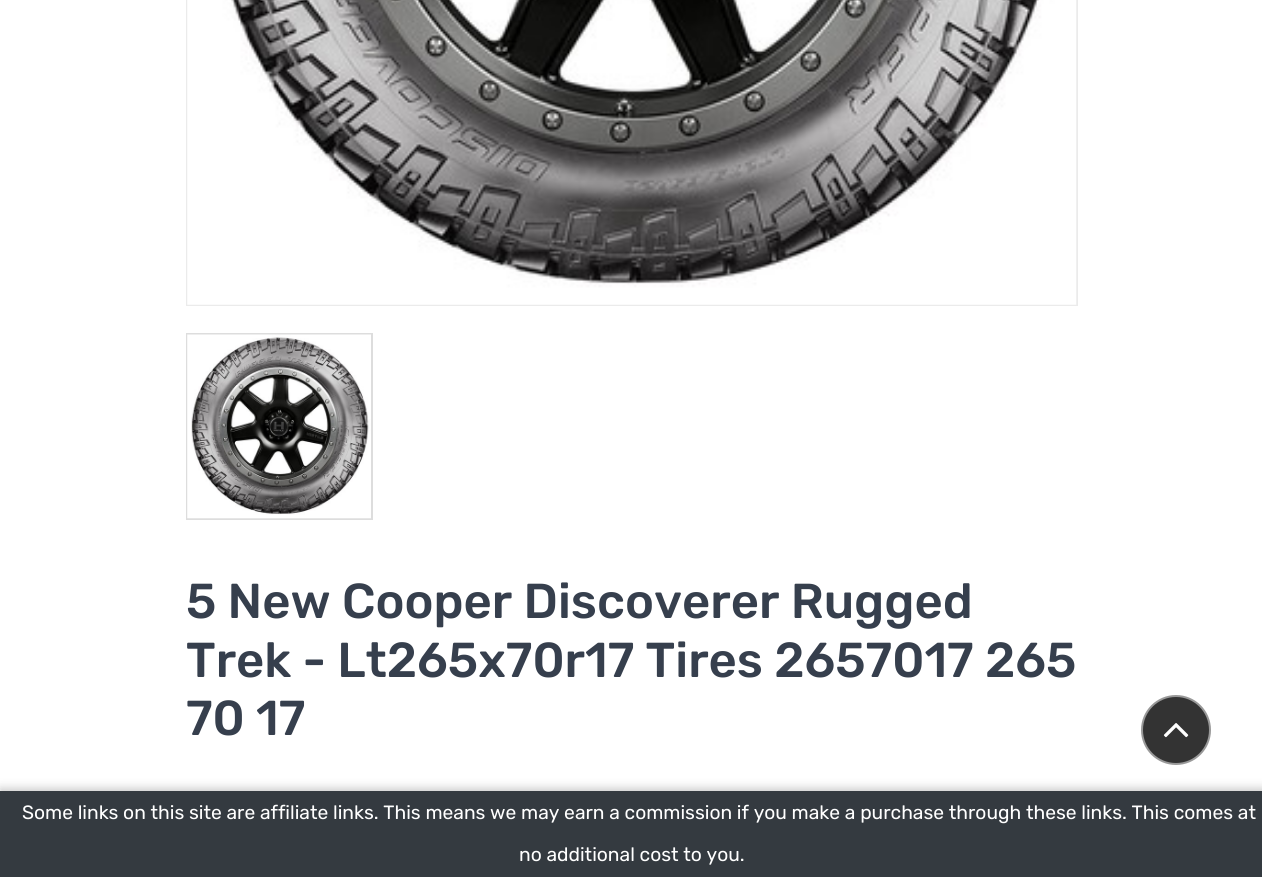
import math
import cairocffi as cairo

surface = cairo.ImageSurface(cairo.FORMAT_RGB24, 1262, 877)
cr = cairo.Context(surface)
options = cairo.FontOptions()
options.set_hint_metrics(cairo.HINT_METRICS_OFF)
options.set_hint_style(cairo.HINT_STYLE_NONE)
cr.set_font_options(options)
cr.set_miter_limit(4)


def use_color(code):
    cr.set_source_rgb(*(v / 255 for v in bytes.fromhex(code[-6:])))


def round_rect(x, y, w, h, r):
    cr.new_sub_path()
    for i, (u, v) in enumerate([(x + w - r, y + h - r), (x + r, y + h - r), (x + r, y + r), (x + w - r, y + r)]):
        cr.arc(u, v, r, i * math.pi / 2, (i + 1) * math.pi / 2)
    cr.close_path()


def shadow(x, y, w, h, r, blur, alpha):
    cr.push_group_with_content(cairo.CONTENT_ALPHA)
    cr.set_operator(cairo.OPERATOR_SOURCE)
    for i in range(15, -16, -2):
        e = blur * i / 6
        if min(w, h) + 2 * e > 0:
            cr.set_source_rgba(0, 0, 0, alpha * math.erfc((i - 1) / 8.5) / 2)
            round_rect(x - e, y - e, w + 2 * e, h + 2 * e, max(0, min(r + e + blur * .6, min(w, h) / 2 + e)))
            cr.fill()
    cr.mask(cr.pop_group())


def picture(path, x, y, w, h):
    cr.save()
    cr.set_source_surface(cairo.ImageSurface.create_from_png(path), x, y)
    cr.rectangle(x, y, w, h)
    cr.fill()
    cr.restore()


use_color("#ffffff")
cr.paint()
cr.rectangle(187, -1, 890, 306)
use_color("#ebebeb")
cr.stroke()
picture("img1.png", 187, 0, 890, 305)
cr.rectangle(187, 334, 185, 185)
use_color("#dddddd")
cr.stroke()
picture("img2.png", 187, 334, 184, 185)
cr.select_font_face("Rubik Medium")
cr.set_font_size(49)
use_color("#363f4d")
cr.move_to(186, 618)
cr.show_text("5 New Cooper Discoverer Rugged")
cr.move_to(186, 677)
cr.show_text("Trek - Lt265x70r17 Tires 2657017 265")
cr.move_to(186, 735)
cr.show_text("70 17")
use_color("#333333")
cr.new_path()
cr.arc(1176, 730, 34, 0, 2 * math.pi)
cr.fill_preserve()
use_color("#999999")
cr.stroke()
picture("img3.png", 1163, 723, 26, 15)
use_color("#000000")
shadow(0, 788, 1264, 87, 0, 4.5, 0.2)
use_color("#343a40")
cr.rectangle(0, 791, 1262, 86)
cr.fill()
cr.select_font_face("Rubik")
cr.set_font_size(19.25)
use_color("#ffffff")
cr.move_to(22, 819)
cr.show_text("Some links on this site are affiliate links. This means we may earn a commission if you make a purchase through these links. This comes at")
cr.move_to(519, 861)
cr.show_text("no additional cost to you.")
surface.write_to_png("result.png")
